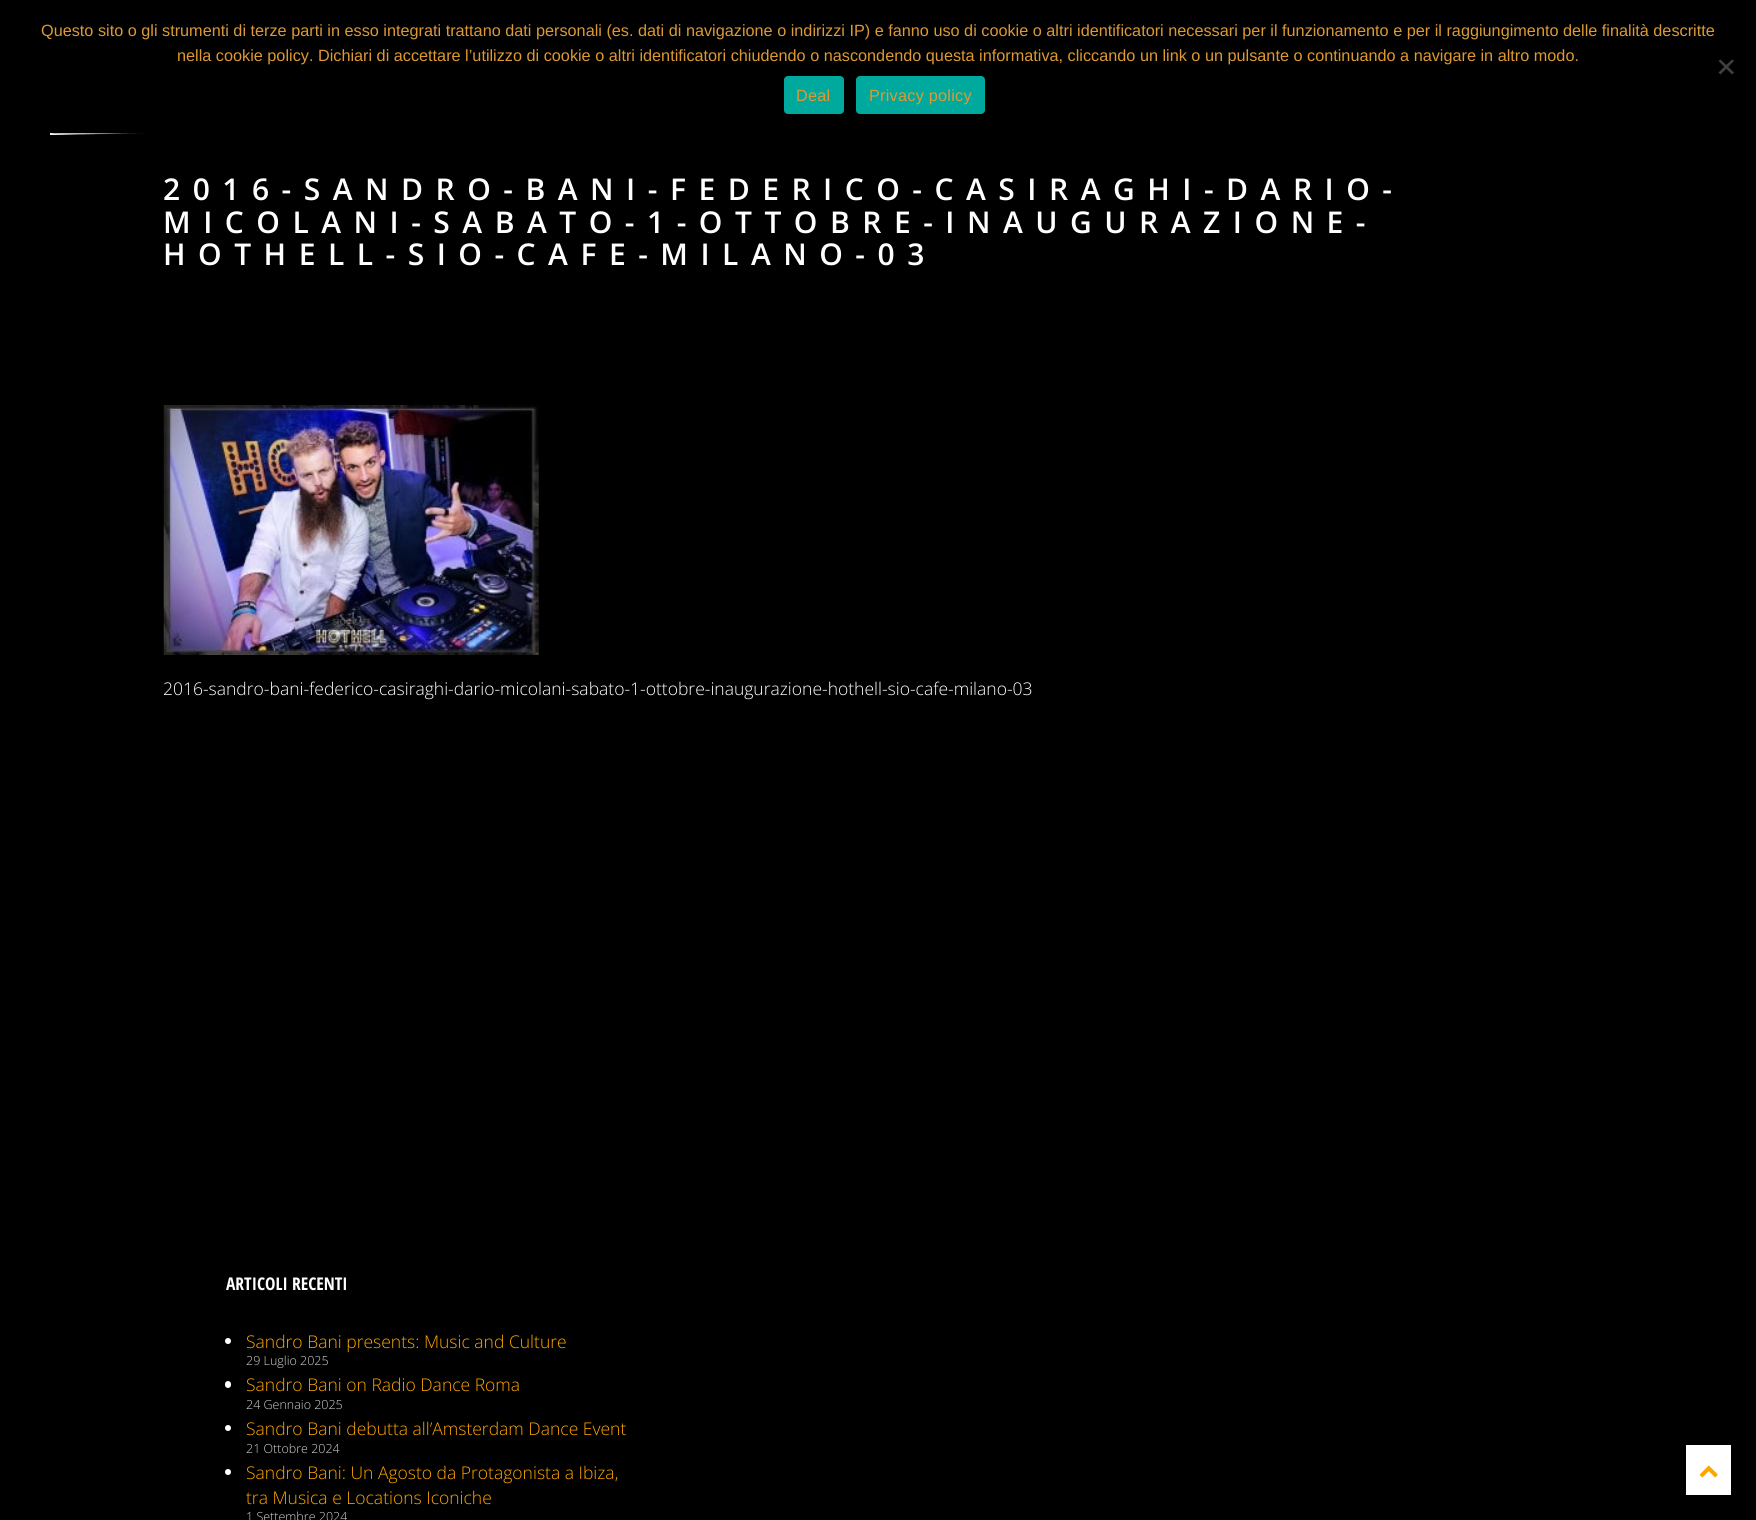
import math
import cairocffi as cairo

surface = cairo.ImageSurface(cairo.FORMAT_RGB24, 1756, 1520)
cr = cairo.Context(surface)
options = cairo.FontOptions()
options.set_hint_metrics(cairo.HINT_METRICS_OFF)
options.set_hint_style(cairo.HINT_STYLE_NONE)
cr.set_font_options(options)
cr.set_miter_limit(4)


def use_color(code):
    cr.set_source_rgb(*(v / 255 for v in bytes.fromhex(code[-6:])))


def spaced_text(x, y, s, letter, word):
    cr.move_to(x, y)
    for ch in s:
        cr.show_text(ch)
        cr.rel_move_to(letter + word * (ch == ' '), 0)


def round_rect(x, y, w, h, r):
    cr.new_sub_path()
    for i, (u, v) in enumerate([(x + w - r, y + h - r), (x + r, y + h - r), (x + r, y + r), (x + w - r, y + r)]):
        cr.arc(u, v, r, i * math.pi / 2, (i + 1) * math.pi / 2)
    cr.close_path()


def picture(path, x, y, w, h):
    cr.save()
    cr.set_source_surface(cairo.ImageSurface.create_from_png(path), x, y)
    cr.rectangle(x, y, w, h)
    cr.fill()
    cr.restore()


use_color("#000000")
cr.paint()
cr.select_font_face("Liberation Sans")
cr.set_font_size(16.25)
use_color("#dd9933")
cr.move_to(41, 36)
cr.show_text("Questo sito o gli strumenti di terze parti in esso integrati trattano dati personali (es. dati di navigazione o indirizzi IP) e fanno uso di cookie o altri identificatori necessari per il funzionamento e per il raggiungimento delle finalità descritte")
cr.move_to(177, 61)
cr.show_text("nella cookie policy. Dichiari di accettare l’utilizzo di cookie o altri identificatori chiudendo o nascondendo questa informativa, cliccando un link o un pulsante o continuando a navigare in altro modo.")
use_color("#404040")
cr.new_path()
cr.move_to(1732, 59.5)
cr.line_to(1734, 61)
cr.line_to(1720.5, 74.5)
cr.line_to(1718.5, 72.5)
cr.close_path()
cr.fill()
cr.new_path()
cr.move_to(1718.5, 61)
cr.line_to(1720.5, 59.5)
cr.line_to(1734, 72.5)
cr.line_to(1732, 74.5)
cr.close_path()
cr.fill()
use_color("#00a99d")
round_rect(784, 76, 60, 38, 4)
cr.fill()
use_color("#dd9933")
spaced_text(796, 101, "Deal", 0.25, 0)
use_color("#00a99d")
round_rect(856, 76, 129, 38, 4)
cr.fill()
use_color("#dd9933")
spaced_text(869, 101, "Privacy policy", 0.25, 0)
picture("img1.png", 50, 133, 97, 2)
cr.select_font_face("Open Sans SemiBold")
cr.set_font_size(30)
use_color("#ffffff")
spaced_text(163, 200, "2016-SANDRO-BANI-FEDERICO-CASIRAGHI-DARIO-", 12.5, 0)
spaced_text(163, 233, "MICOLANI-SABATO-1-OTTOBRE-INAUGURAZIONE-", 12.5, 0)
spaced_text(163, 265, "HOTHELL-SIO-CAFE-MILANO-03", 12.5, 0)
picture("img2.png", 163, 405, 376, 250)
cr.select_font_face("Open Sans Light")
cr.set_font_size(17.5)
cr.move_to(163, 695)
cr.show_text("2016-sandro-bani-federico-casiraghi-dario-micolani-sabato-1-ottobre-inaugurazione-hothell-sio-cafe-milano-03")
cr.select_font_face("Open Sans Condensed", cairo.FONT_SLANT_NORMAL, cairo.FONT_WEIGHT_BOLD)
cr.move_to(226, 1290)
cr.show_text("ARTICOLI RECENTI")
cr.new_path()
cr.arc(228, 1341, 3, 0, 2 * math.pi)
cr.fill()
cr.select_font_face("Open Sans Light")
use_color("#ffa500")
cr.move_to(246, 1348)
cr.show_text("Sandro Bani presents: Music and Culture")
cr.set_font_size(12.5)
use_color("#d3d3d3")
cr.move_to(246, 1365)
cr.show_text("29 Luglio 2025")
use_color("#ffffff")
round_rect(225, 1381, 6, 7, 3)
cr.fill()
cr.set_font_size(17.5)
use_color("#ffa500")
cr.move_to(246, 1391)
cr.show_text("Sandro Bani on Radio Dance Roma")
cr.set_font_size(12.5)
use_color("#d3d3d3")
cr.move_to(246, 1409)
cr.show_text("24 Gennaio 2025")
use_color("#ffffff")
cr.new_path()
cr.arc(228, 1428, 3, 0, 2 * math.pi)
cr.fill()
cr.set_font_size(17.5)
use_color("#ffa500")
cr.move_to(246, 1435)
cr.show_text("Sandro Bani debutta all’Amsterdam Dance Event")
cr.set_font_size(12.5)
use_color("#d3d3d3")
cr.move_to(246, 1453)
cr.show_text("21 Ottobre 2024")
use_color("#ffffff")
cr.new_path()
cr.arc(228, 1472, 3, 0, 2 * math.pi)
cr.fill()
cr.set_font_size(17.5)
use_color("#ffa500")
cr.move_to(246, 1479)
cr.show_text("Sandro Bani: Un Agosto da Protagonista a Ibiza,")
cr.move_to(246, 1504)
cr.show_text("tra Musica e Locations Iconiche")
cr.set_font_size(12.5)
use_color("#d3d3d3")
cr.move_to(246, 1521)
cr.show_text("1 Settembre 2024")
use_color("#ffffff")
cr.rectangle(1686, 1445, 45, 50)
cr.fill()
picture("img3.png", 1699, 1465, 19, 13)
surface.write_to_png("result.png")
